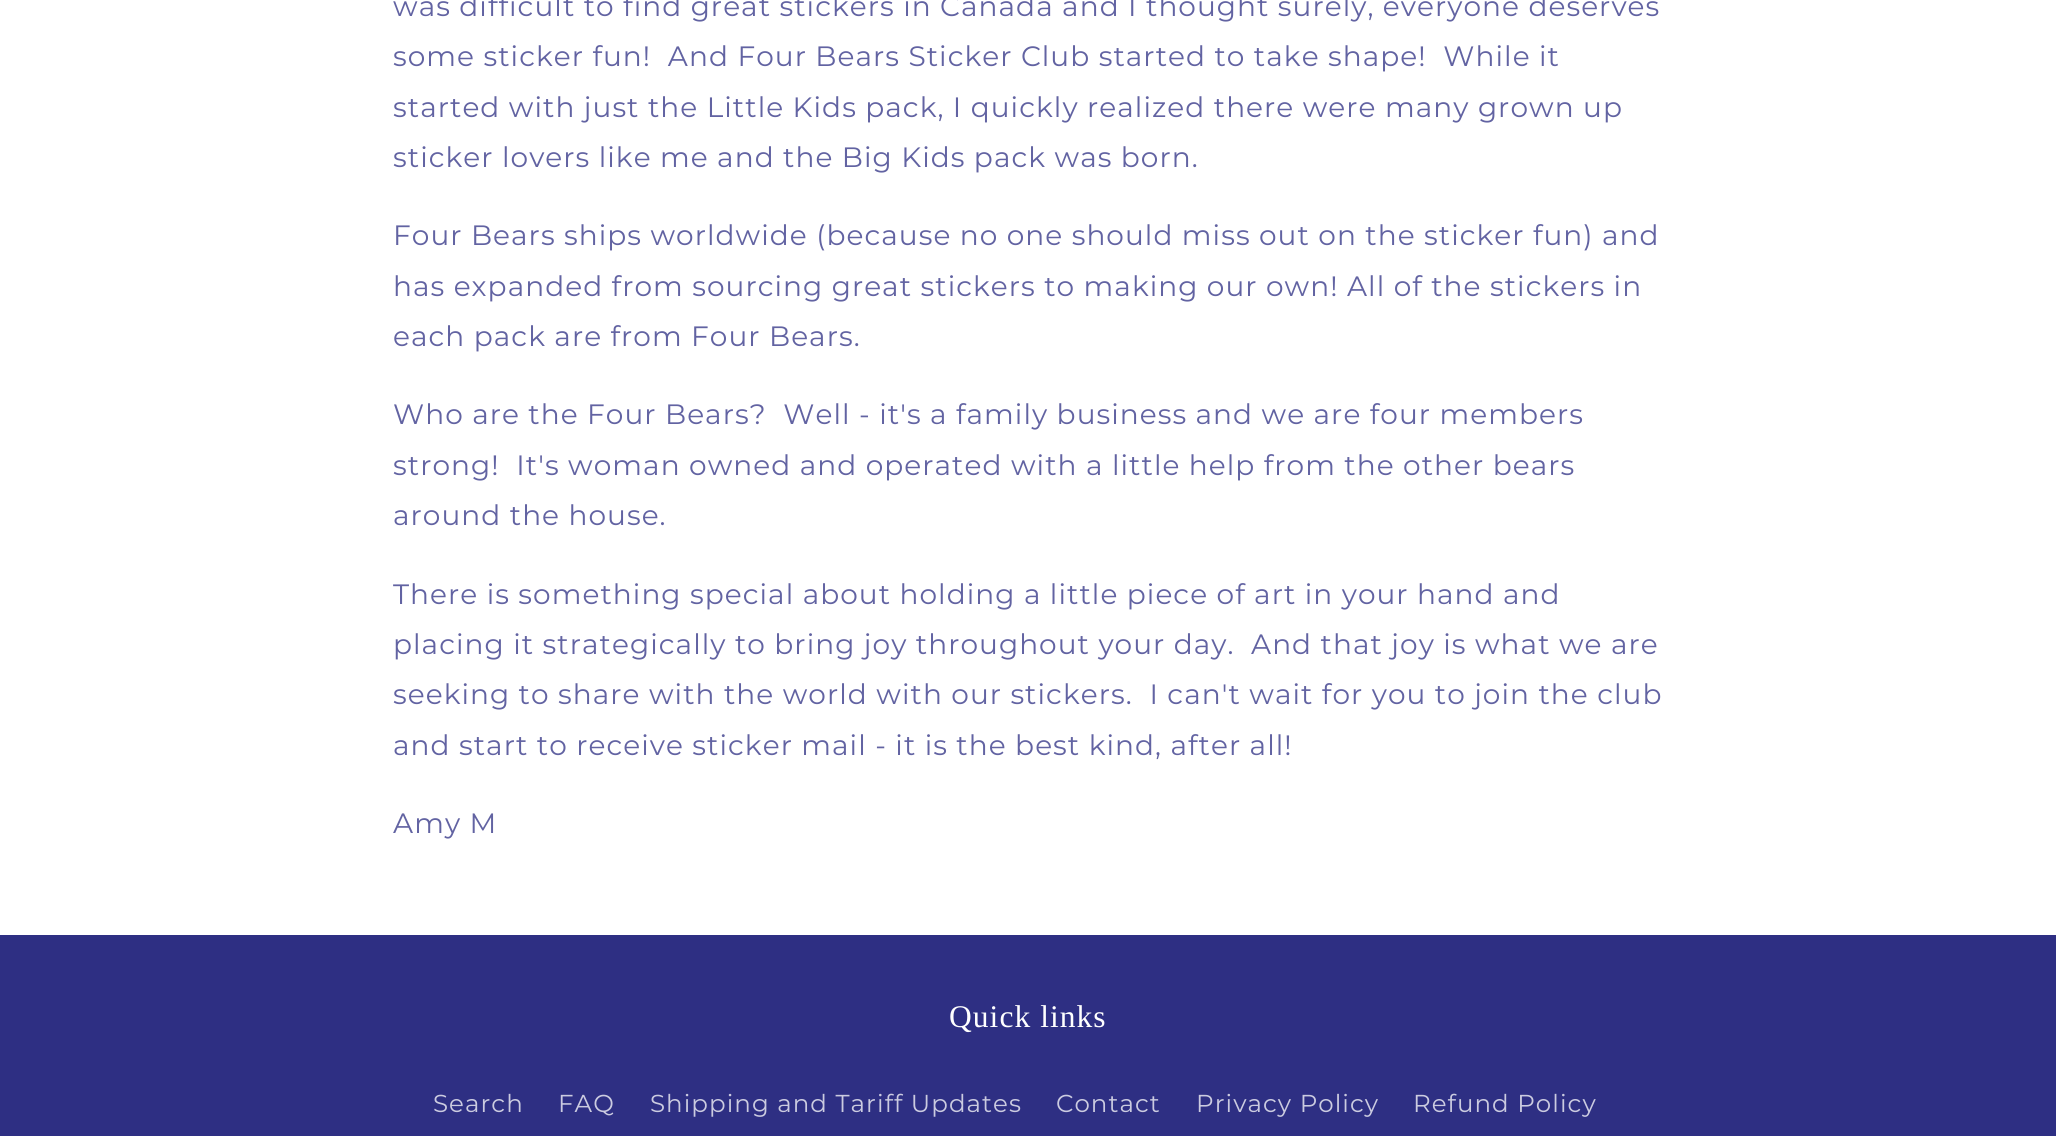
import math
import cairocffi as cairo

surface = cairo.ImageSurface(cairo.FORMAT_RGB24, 2056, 1136)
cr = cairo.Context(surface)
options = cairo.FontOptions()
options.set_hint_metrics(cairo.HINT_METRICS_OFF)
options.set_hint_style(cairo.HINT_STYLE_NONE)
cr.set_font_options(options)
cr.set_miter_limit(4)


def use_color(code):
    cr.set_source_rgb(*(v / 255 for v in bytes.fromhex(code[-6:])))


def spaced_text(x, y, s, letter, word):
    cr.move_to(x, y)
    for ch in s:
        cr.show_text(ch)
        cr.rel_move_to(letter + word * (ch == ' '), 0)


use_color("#ffffff")
cr.paint()
cr.select_font_face("Montserrat")
cr.set_font_size(28)
use_color("#6263a2")
spaced_text(393, 16, "was difficult to find great stickers in Canada and I thought surely, everyone deserves", 1.05, 0)
spaced_text(393, 66, "some sticker fun!  And Four Bears Sticker Club started to take shape!  While it", 1.05, 0)
spaced_text(393, 117, "started with just the Little Kids pack, I quickly realized there were many grown up", 1.05, 0)
spaced_text(393, 167, "sticker lovers like me and the Big Kids pack was born.", 1.05, 0)
spaced_text(393, 245, "Four Bears ships worldwide (because no one should miss out on the sticker fun) and", 1.05, 0)
spaced_text(393, 296, "has expanded from sourcing great stickers to making our own! All of the stickers in", 1.05, 0)
spaced_text(393, 346, "each pack are from Four Bears.", 1.05, 0)
spaced_text(393, 424, "Who are the Four Bears?  Well - it's a family business and we are four members", 1.05, 0)
spaced_text(393, 475, "strong!  It's woman owned and operated with a little help from the other bears", 1.05, 0)
spaced_text(393, 525, "around the house.", 1.05, 0)
spaced_text(393, 604, "There is something special about holding a little piece of art in your hand and", 1.05, 0)
spaced_text(393, 654, "placing it strategically to bring joy throughout your day.", 1.05, 0)
spaced_text(1251, 654, "And that joy is what we are", 1.05, 0)
spaced_text(393, 704, "seeking to share with the world with our stickers.  I can't wait for you to join the club", 1.05, 0)
spaced_text(393, 755, "and start to receive sticker mail - it is the best kind, after all!", 1.05, 0)
spaced_text(393, 833, "Amy M", 1.05, 0)
use_color("#2e2f83")
cr.rectangle(0, 935, 2056, 201)
cr.fill()
cr.select_font_face("Liberation Serif")
cr.set_font_size(31.5)
use_color("#ffffff")
spaced_text(949, 1027, "Quick links", 1.05, 0)
cr.select_font_face("Montserrat")
cr.set_font_size(24.5)
use_color("#cbcbe0")
spaced_text(433, 1112, "Search", 1.05, 0)
spaced_text(558, 1112, "FAQ", 1.05, 0)
spaced_text(650, 1112, "Shipping and Tariff Updates", 1.05, 0)
spaced_text(1056, 1112, "Contact", 1.05, 0)
spaced_text(1196, 1112, "Privacy Policy", 1.05, 0)
spaced_text(1413, 1112, "Refund Policy", 1.05, 0)
surface.write_to_png("result.png")
